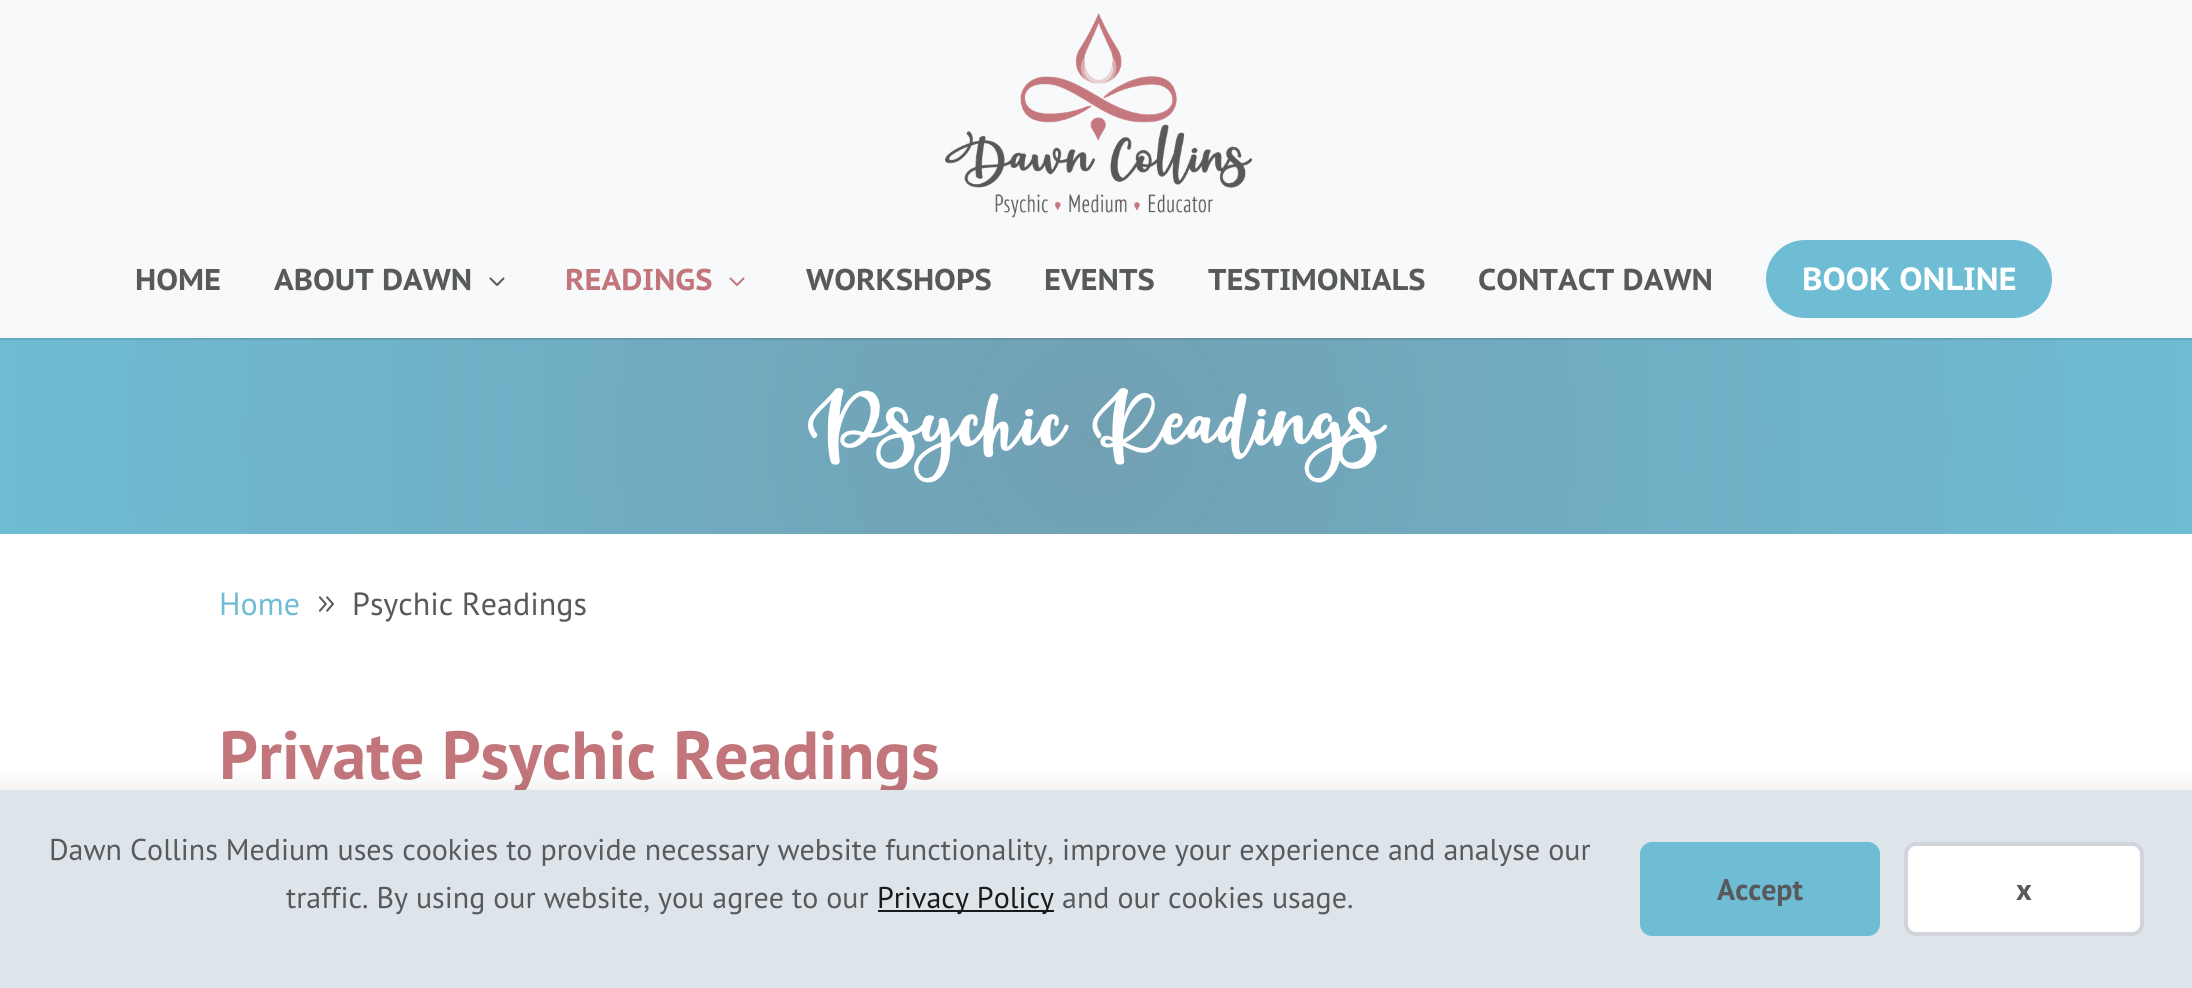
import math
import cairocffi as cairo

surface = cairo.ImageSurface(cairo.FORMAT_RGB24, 2192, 988)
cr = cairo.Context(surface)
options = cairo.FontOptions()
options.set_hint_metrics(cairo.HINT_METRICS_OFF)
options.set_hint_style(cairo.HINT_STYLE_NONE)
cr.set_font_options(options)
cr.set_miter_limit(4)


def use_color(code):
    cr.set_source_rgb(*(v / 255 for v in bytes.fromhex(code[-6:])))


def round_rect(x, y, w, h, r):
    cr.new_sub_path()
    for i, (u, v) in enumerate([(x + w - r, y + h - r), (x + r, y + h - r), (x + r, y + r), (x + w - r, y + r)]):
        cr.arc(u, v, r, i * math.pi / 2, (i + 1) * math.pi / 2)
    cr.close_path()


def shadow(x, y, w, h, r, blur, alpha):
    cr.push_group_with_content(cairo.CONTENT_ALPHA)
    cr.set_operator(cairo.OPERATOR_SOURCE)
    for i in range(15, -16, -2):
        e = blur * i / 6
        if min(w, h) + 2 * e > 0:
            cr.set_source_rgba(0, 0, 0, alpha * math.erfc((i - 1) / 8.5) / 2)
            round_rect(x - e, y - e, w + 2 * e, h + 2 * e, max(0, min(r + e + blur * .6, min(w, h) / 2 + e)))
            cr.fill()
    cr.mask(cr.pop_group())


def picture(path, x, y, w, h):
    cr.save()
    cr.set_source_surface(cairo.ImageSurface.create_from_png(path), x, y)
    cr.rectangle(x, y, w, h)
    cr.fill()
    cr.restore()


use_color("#ffffff")
cr.paint()
use_color("#f7f9fa")
cr.rectangle(0, 0, 2192, 338)
cr.fill()
picture("img1.png", 944, 13, 309, 205)
cr.select_font_face("PT Sans Caption", cairo.FONT_SLANT_NORMAL, cairo.FONT_WEIGHT_BOLD)
cr.set_font_size(30)
use_color("#58595b")
cr.move_to(135, 290)
cr.show_text("HOME")
cr.move_to(274, 290)
cr.show_text("ABOUT DAWN")
picture("img2.png", 489, 277, 16, 9)
use_color("#c2767c")
cr.move_to(565, 290)
cr.show_text("READINGS")
picture("img3.png", 729, 277, 16, 9)
use_color("#58595b")
cr.move_to(806, 290)
cr.show_text("WORKSHOPS")
cr.move_to(1044, 290)
cr.show_text("EVENTS")
cr.move_to(1208, 290)
cr.show_text("TESTIMONIALS")
cr.move_to(1478, 290)
cr.show_text("CONTACT DAWN")
use_color("#6ebdd4")
round_rect(1768, 242, 282, 74, 37)
cr.fill_preserve()
cr.set_line_width(4)
cr.stroke()
cr.set_font_size(32)
use_color("#ffffff")
cr.move_to(1802, 290)
cr.show_text("BOOK ONLINE")
gradient = cairo.RadialGradient(1096, 436, 0, 1096, 436, 1100)
gradient.add_color_stop_rgba(0, 0.447, 0.627, 0.702, 1)
gradient.add_color_stop_rgba(1, 0.431, 0.741, 0.831, 1)
cr.set_source(gradient)
cr.rectangle(0, 340, 2192, 194)
cr.fill()
gradient = cairo.RadialGradient(1096, 436, 0, 1096, 436, 1100)
gradient.add_color_stop_rgba(0, 0.404, 0.565, 0.631, 1)
gradient.add_color_stop_rgba(1, 0.388, 0.667, 0.749, 1)
cr.set_source(gradient)
cr.rectangle(0, 338, 2192, 2)
cr.fill()
picture("img4.png", 808, 388, 580, 95)
cr.select_font_face("PT Sans")
use_color("#6ebdd4")
cr.move_to(219, 615)
cr.show_text("Home")
picture("img5.png", 318, 596, 16, 16)
use_color("#58595b")
cr.move_to(352, 615)
cr.show_text("Psychic Readings")
cr.select_font_face("PT Sans", cairo.FONT_SLANT_NORMAL, cairo.FONT_WEIGHT_BOLD)
cr.set_font_size(68)
use_color("#c2767c")
cr.move_to(219, 779)
cr.show_text("Private Psychic Readings")
use_color("#000000")
shadow(0, 786, 2192, 198, 0, 10, 0.08)
use_color("#dde5eb")
cr.rectangle(0, 790, 2192, 198)
cr.fill()
cr.select_font_face("PT Sans")
cr.set_font_size(30)
use_color("#58595b")
cr.move_to(49, 860)
cr.show_text("Dawn Collins Medium uses cookies to provide necessary website functionality, improve your experience and analyse our")
cr.move_to(286, 908)
cr.show_text("traffic. By using our website, you agree to our")
use_color("#1a1a1a")
cr.rectangle(878, 910, 176, 2)
cr.fill()
cr.move_to(877, 908)
cr.show_text("Privacy Policy")
use_color("#58595b")
cr.move_to(1062, 908)
cr.show_text("and our cookies usage.")
use_color("#6ebdd4")
round_rect(1640, 842, 240, 94, 12)
cr.fill()
cr.select_font_face("PT Sans", cairo.FONT_SLANT_NORMAL, cairo.FONT_WEIGHT_BOLD)
use_color("#58595b")
cr.move_to(1717, 900)
cr.show_text("Accept")
use_color("#ffffff")
round_rect(1906, 844, 236, 90, 10)
cr.fill_preserve()
use_color("#d1d5db")
cr.stroke()
use_color("#58595b")
cr.move_to(2016, 900)
cr.show_text("x")
surface.write_to_png("result.png")
